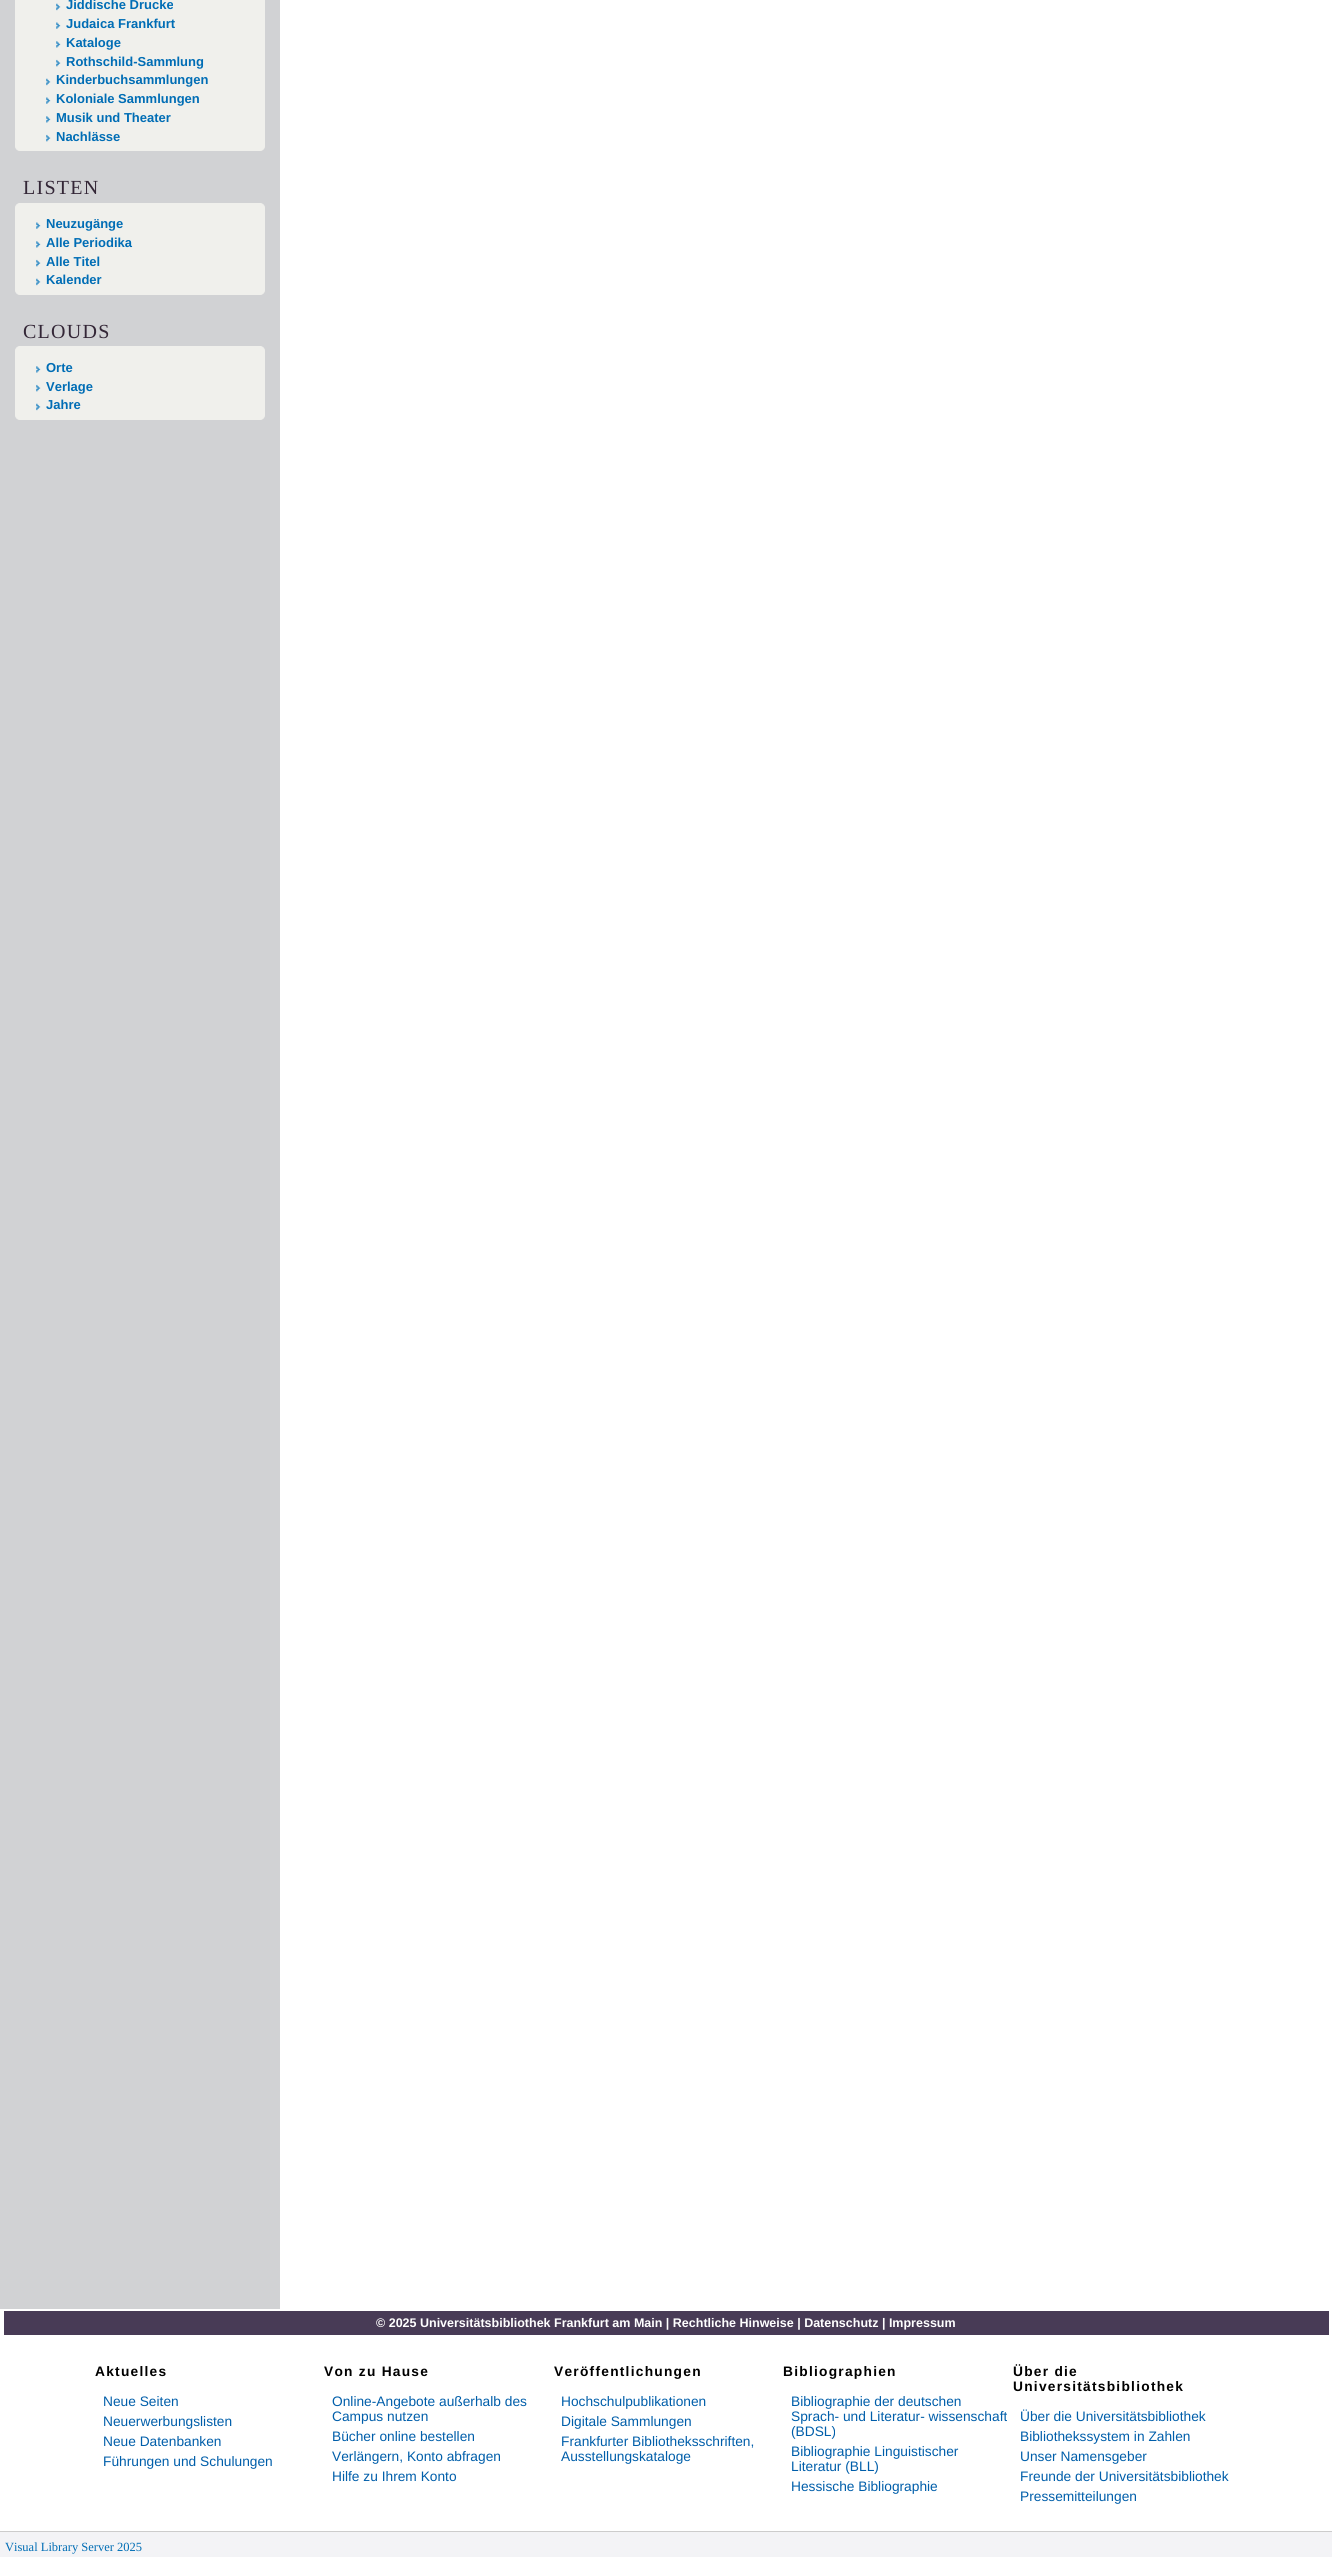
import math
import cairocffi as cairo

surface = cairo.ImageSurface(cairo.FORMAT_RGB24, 1332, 2557)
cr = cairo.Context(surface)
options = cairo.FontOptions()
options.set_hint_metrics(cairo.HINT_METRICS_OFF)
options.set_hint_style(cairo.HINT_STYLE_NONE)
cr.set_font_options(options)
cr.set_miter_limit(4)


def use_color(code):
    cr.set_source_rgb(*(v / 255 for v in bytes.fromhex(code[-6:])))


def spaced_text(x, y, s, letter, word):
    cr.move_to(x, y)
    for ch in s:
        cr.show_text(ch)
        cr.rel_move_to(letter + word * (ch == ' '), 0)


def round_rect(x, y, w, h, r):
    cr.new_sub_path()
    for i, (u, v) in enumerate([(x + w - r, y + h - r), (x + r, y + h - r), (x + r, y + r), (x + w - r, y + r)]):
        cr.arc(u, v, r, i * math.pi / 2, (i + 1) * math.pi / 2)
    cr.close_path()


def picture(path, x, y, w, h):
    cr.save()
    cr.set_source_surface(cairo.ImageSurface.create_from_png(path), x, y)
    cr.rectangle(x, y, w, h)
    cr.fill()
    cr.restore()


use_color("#ffffff")
cr.paint()
use_color("#d1d2d4")
cr.rectangle(0, 0, 280, 2309)
cr.fill()
use_color("#f0f0ec")
round_rect(15.5, -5.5, 249, 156, 4.5)
cr.fill_preserve()
cr.set_line_width(1)
cr.stroke()
picture("img1.png", 56, 3, 5, 8)
cr.select_font_face("Liberation Sans", cairo.FONT_SLANT_NORMAL, cairo.FONT_WEIGHT_BOLD)
cr.set_font_size(13)
use_color("#006db5")
cr.move_to(66, 9)
cr.show_text("Jiddische Drucke")
picture("img2.png", 56, 22, 5, 7)
cr.move_to(66, 28)
cr.show_text("Judaica Frankfurt")
picture("img3.png", 56, 41, 5, 7)
cr.move_to(66, 47)
cr.show_text("Kataloge")
picture("img4.png", 56, 59, 5, 8)
cr.move_to(66, 66)
cr.show_text("Rothschild-Sammlung")
picture("img1.png", 46, 78, 5, 8)
cr.move_to(56, 84)
cr.show_text("Kinderbuchsammlungen")
picture("img2.png", 46, 97, 5, 7)
cr.move_to(56, 103)
cr.show_text("Koloniale Sammlungen")
picture("img3.png", 46, 116, 5, 7)
cr.move_to(56, 122)
cr.show_text("Musik und Theater")
picture("img4.png", 46, 134, 5, 8)
cr.move_to(56, 141)
cr.show_text("Nachlässe")
cr.select_font_face("Liberation Serif")
cr.set_font_size(20)
use_color("#332636")
spaced_text(23, 194, "LISTEN", 1.25, 0)
use_color("#f0f0ec")
round_rect(15.5, 203.5, 249, 91, 4.5)
cr.fill_preserve()
cr.stroke()
picture("img2.png", 36, 222, 5, 7)
cr.select_font_face("Liberation Sans", cairo.FONT_SLANT_NORMAL, cairo.FONT_WEIGHT_BOLD)
cr.set_font_size(13)
use_color("#006db5")
cr.move_to(46, 228)
cr.show_text("Neuzugänge")
picture("img3.png", 36, 241, 5, 7)
cr.move_to(46, 247)
cr.show_text("Alle Periodika")
picture("img4.png", 36, 259, 5, 8)
cr.move_to(46, 266)
cr.show_text("Alle Titel")
picture("img1.png", 36, 278, 5, 8)
cr.move_to(46, 284)
cr.show_text("Kalender")
cr.select_font_face("Liberation Serif")
cr.set_font_size(20)
use_color("#332636")
spaced_text(23, 338, "CLOUDS", 1.25, 0)
use_color("#f0f0ec")
round_rect(15.5, 346.5, 249, 73, 4.5)
cr.fill_preserve()
cr.stroke()
picture("img5.png", 36, 366, 5, 7)
cr.select_font_face("Liberation Sans", cairo.FONT_SLANT_NORMAL, cairo.FONT_WEIGHT_BOLD)
cr.set_font_size(13)
use_color("#006db5")
cr.move_to(46, 372)
cr.show_text("Orte")
picture("img4.png", 36, 384, 5, 8)
cr.move_to(46, 391)
cr.show_text("Verlage")
picture("img1.png", 36, 403, 5, 8)
cr.move_to(46, 409)
cr.show_text("Jahre")
use_color("#483b56")
cr.rectangle(4, 2311, 1325, 24)
cr.fill()
cr.set_font_size(12.5)
use_color("#ffffff")
cr.move_to(376, 2327)
cr.show_text("© 2025 Universitätsbibliothek Frankfurt am Main | Rechtliche Hinweise | Datenschutz | Impressum")
cr.set_font_size(13.75)
use_color("#000000")
spaced_text(95, 2376, "Aktuelles", 1.25, 0)
cr.select_font_face("Liberation Sans")
use_color("#005eaa")
cr.move_to(103, 2406)
cr.show_text("Neue Seiten")
cr.move_to(103, 2426)
cr.show_text("Neuerwerbungslisten")
cr.move_to(103, 2446)
cr.show_text("Neue Datenbanken")
cr.move_to(103, 2466)
cr.show_text("Führungen und Schulungen")
cr.select_font_face("Liberation Sans", cairo.FONT_SLANT_NORMAL, cairo.FONT_WEIGHT_BOLD)
use_color("#000000")
spaced_text(324, 2376, "Von zu Hause", 1.25, 0)
cr.select_font_face("Liberation Sans")
use_color("#005eaa")
cr.move_to(332, 2406)
cr.show_text("Online-Angebote außerhalb des")
cr.move_to(332, 2421)
cr.show_text("Campus nutzen")
cr.move_to(332, 2441)
cr.show_text("Bücher online bestellen")
cr.move_to(332, 2461)
cr.show_text("Verlängern, Konto abfragen")
cr.move_to(332, 2481)
cr.show_text("Hilfe zu Ihrem Konto")
cr.select_font_face("Liberation Sans", cairo.FONT_SLANT_NORMAL, cairo.FONT_WEIGHT_BOLD)
use_color("#000000")
spaced_text(554, 2376, "Veröffentlichungen", 1.25, 0)
cr.select_font_face("Liberation Sans")
use_color("#005eaa")
cr.move_to(561, 2406)
cr.show_text("Hochschulpublikationen")
cr.move_to(561, 2426)
cr.show_text("Digitale Sammlungen")
cr.move_to(561, 2446)
cr.show_text("Frankfurter Bibliotheksschriften,")
cr.move_to(561, 2461)
cr.show_text("Ausstellungskataloge")
cr.select_font_face("Liberation Sans", cairo.FONT_SLANT_NORMAL, cairo.FONT_WEIGHT_BOLD)
use_color("#000000")
spaced_text(783, 2376, "Bibliographien", 1.25, 0)
cr.select_font_face("Liberation Sans")
use_color("#005eaa")
cr.move_to(791, 2406)
cr.show_text("Bibliographie der deutschen")
cr.move_to(791, 2421)
cr.show_text("Sprach- und Literatur- wissenschaft")
cr.move_to(791, 2436)
cr.show_text("(BDSL)")
cr.move_to(791, 2456)
cr.show_text("Bibliographie Linguistischer")
cr.move_to(791, 2471)
cr.show_text("Literatur (BLL)")
cr.move_to(791, 2491)
cr.show_text("Hessische Bibliographie")
cr.select_font_face("Liberation Sans", cairo.FONT_SLANT_NORMAL, cairo.FONT_WEIGHT_BOLD)
use_color("#000000")
spaced_text(1013, 2376, "Über die", 1.25, 0)
spaced_text(1013, 2391, "Universitätsbibliothek", 1.25, 0)
cr.select_font_face("Liberation Sans")
use_color("#005eaa")
cr.move_to(1020, 2421)
cr.show_text("Über die Universitätsbibliothek")
cr.move_to(1020, 2441)
cr.show_text("Bibliothekssystem in Zahlen")
cr.move_to(1020, 2461)
cr.show_text("Unser Namensgeber")
cr.move_to(1020, 2481)
cr.show_text("Freunde der Universitätsbibliothek")
cr.move_to(1020, 2501)
cr.show_text("Pressemitteilungen")
use_color("#f3f3f6")
cr.rectangle(0, 2532, 1332, 25)
cr.fill()
use_color("#cccccc")
cr.rectangle(0, 2531, 1332, 1)
cr.fill()
cr.select_font_face("Liberation Serif")
cr.set_font_size(12.5)
use_color("#006db5")
cr.move_to(5, 2551)
cr.show_text("Visual Library Server 2025")
surface.write_to_png("result.png")
